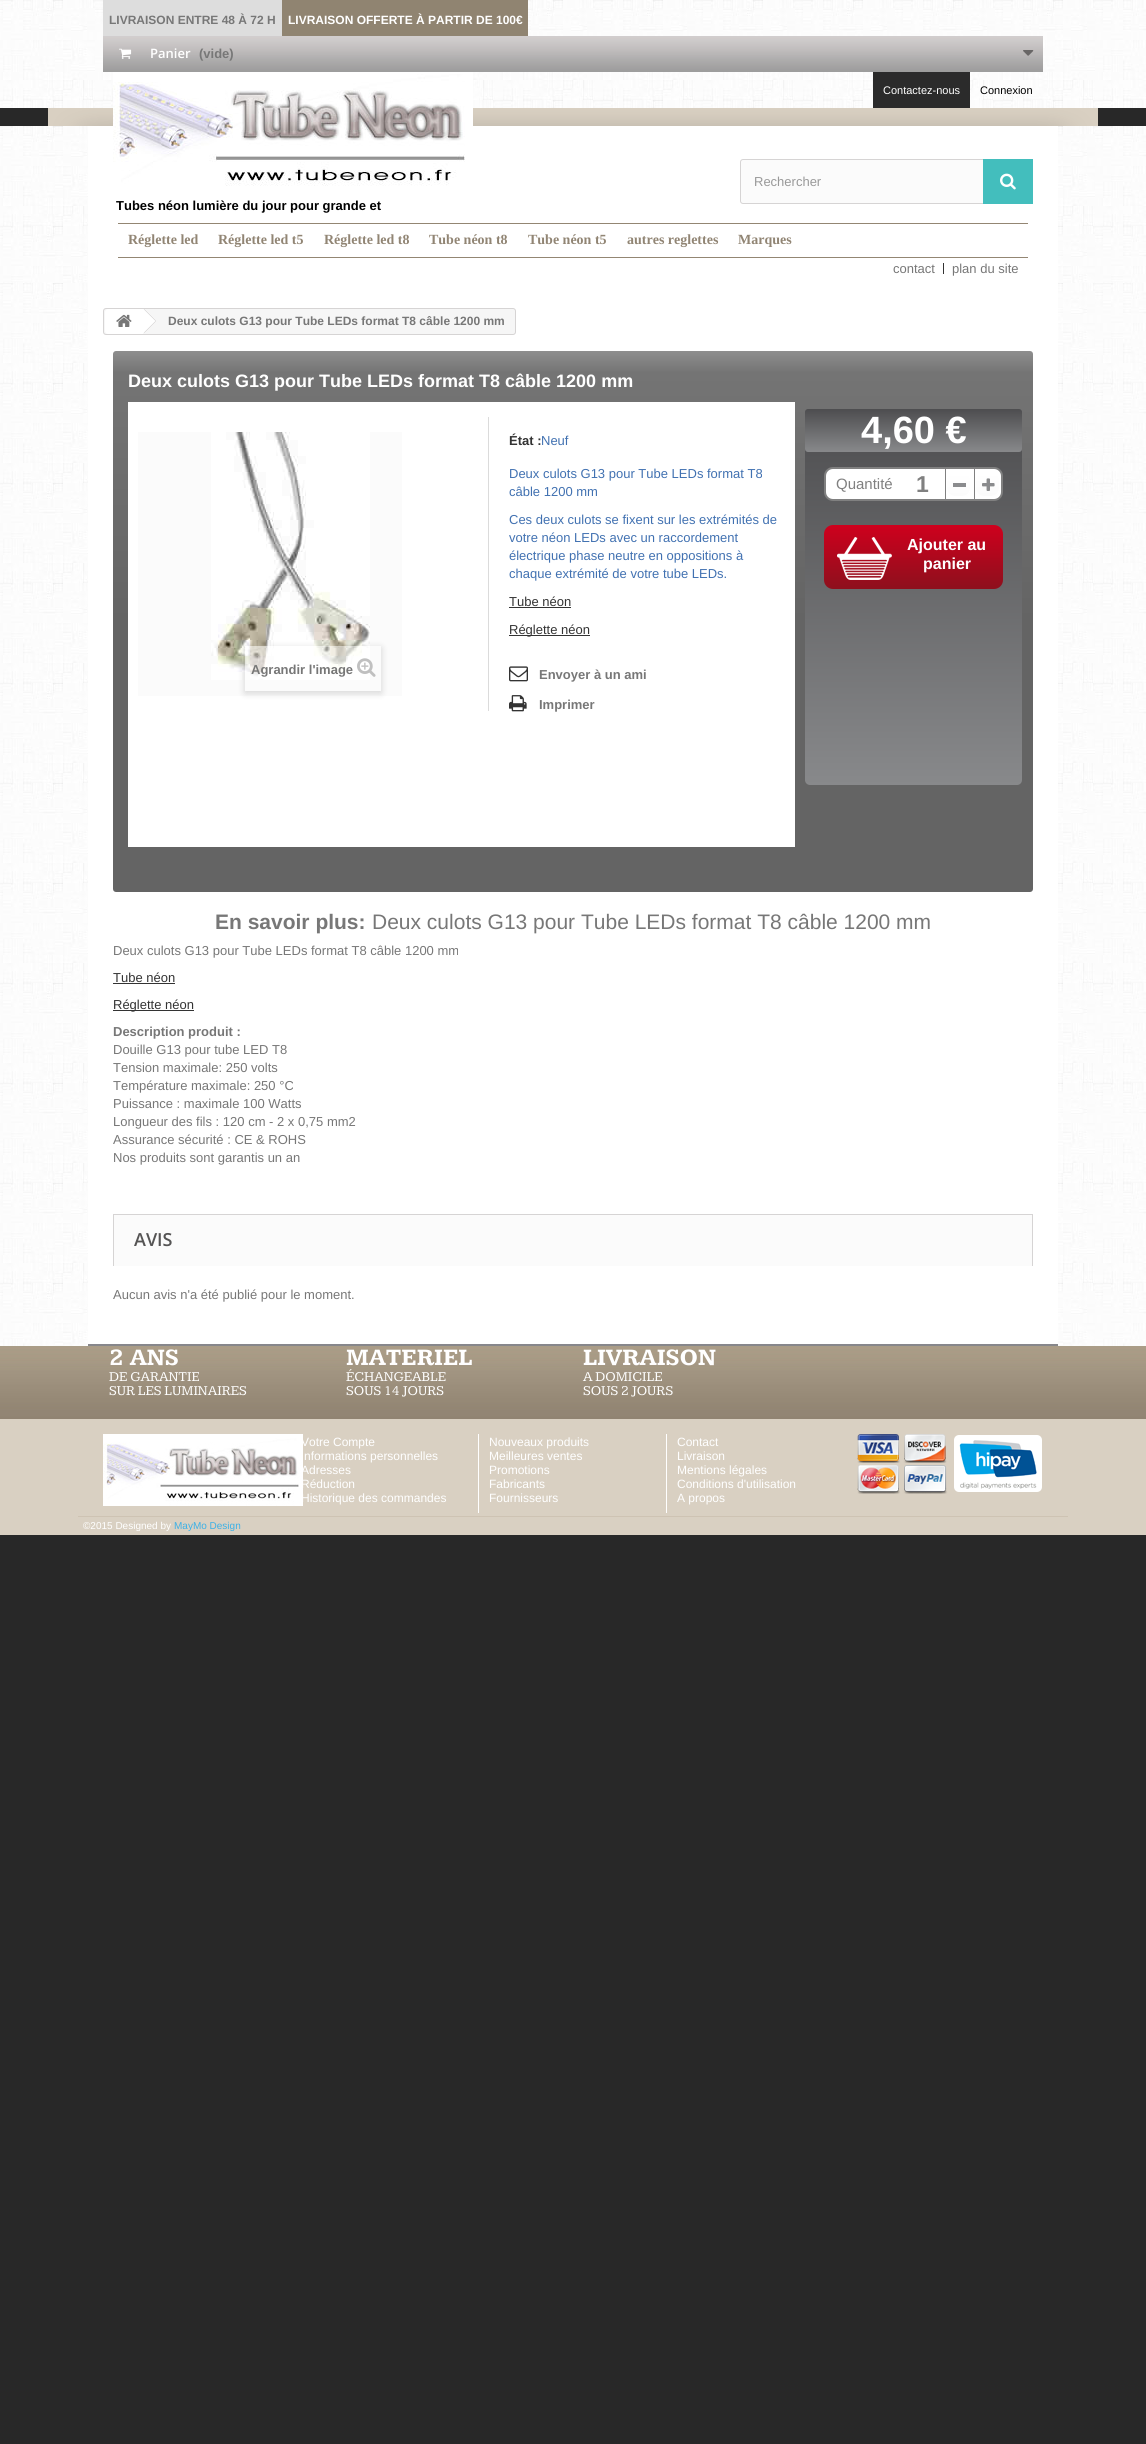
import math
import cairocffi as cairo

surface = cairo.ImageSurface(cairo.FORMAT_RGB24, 1146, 2444)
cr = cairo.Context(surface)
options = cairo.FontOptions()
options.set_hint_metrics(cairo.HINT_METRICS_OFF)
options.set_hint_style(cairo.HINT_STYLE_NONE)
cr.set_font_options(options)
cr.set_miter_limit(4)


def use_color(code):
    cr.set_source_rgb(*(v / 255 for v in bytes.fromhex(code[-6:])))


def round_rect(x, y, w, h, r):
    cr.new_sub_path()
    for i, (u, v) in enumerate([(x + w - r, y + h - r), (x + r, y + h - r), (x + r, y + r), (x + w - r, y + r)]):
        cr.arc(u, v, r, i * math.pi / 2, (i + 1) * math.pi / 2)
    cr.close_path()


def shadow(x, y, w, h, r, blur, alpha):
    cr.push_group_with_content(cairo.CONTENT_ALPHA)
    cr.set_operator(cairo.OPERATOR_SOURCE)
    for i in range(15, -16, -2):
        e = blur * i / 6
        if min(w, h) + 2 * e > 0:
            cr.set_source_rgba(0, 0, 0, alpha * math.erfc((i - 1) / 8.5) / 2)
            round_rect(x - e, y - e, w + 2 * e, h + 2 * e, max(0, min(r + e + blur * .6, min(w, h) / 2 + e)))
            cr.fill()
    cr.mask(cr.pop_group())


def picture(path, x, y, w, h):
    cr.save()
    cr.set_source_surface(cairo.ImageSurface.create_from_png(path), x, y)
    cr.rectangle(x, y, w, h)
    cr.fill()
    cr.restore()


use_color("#282828")
cr.paint()
picture("img1.png", 0, 0, 1146, 108)
use_color("#dddddd")
cr.rectangle(103, 0, 179, 36)
cr.fill()
cr.select_font_face("Liberation Sans", cairo.FONT_SLANT_NORMAL, cairo.FONT_WEIGHT_BOLD)
cr.set_font_size(12)
use_color("#777777")
cr.move_to(109, 24)
cr.show_text("LIVRAISON ENTRE 48 À 72 H")
use_color("#908471")
cr.rectangle(282, 0, 246, 36)
cr.fill()
use_color("#ffffff")
cr.move_to(288, 24)
cr.show_text("LIVRAISON OFFERTE À PARTIR DE 100€")
picture("img2.png", 103, 36, 940, 36)
picture("img3.png", 119, 48, 13, 11)
cr.select_font_face("Open Sans SemiBold")
cr.set_font_size(13)
cr.move_to(150, 58)
cr.show_text("Panier")
cr.select_font_face("Liberation Sans", cairo.FONT_SLANT_NORMAL, cairo.FONT_WEIGHT_BOLD)
use_color("#777777")
cr.move_to(199, 58)
cr.show_text("(vide)")
picture("img4.png", 1023, 50, 11, 6)
use_color("#2b2b2b")
cr.rectangle(873, 72, 97, 36)
cr.fill()
cr.select_font_face("Liberation Sans")
cr.set_font_size(11)
use_color("#ffffff")
cr.move_to(883, 94)
cr.show_text("Contactez-nous")
use_color("#000000")
cr.move_to(980, 94)
cr.show_text("Connexion")
picture("img5.png", 48, 108, 1050, 18)
picture("img6.png", 0, 126, 1146, 157)
picture("img9.png", 0, 283, 1146, 1063)
use_color("#ffffff")
cr.rectangle(88, 126, 970, 1218)
cr.fill()
use_color("#fbfbfb")
round_rect(740.5, 159.5, 292, 44, 2.5)
cr.fill_preserve()
use_color("#d6d4d4")
cr.set_line_width(1)
cr.stroke()
cr.set_font_size(13)
use_color("#999999")
cr.move_to(754, 186)
cr.show_text("Rechercher")
use_color("#43bebd")
cr.rectangle(983, 159, 50, 45)
cr.fill()
picture("img7.png", 1000, 173, 16, 17)
picture("img8.png", 113, 72, 360, 114)
cr.select_font_face("Liberation Sans", cairo.FONT_SLANT_NORMAL, cairo.FONT_WEIGHT_BOLD)
use_color("#000000")
cr.move_to(116, 210)
cr.show_text("Tubes néon lumière du jour pour grande et")
use_color("#938673")
cr.rectangle(118, 223, 910, 1)
cr.fill()
cr.rectangle(118, 257, 910, 1)
cr.fill()
cr.select_font_face("Liberation Serif", cairo.FONT_SLANT_NORMAL, cairo.FONT_WEIGHT_BOLD)
cr.set_font_size(14)
use_color("#918574")
cr.move_to(128, 244)
cr.show_text("Réglette led")
cr.move_to(218, 244)
cr.show_text("Réglette led t5")
cr.move_to(324, 244)
cr.show_text("Réglette led t8")
cr.move_to(429, 244)
cr.show_text("Tube néon t8")
cr.move_to(528, 244)
cr.show_text("Tube néon t5")
cr.move_to(627, 244)
cr.show_text("autres reglettes")
cr.move_to(738, 244)
cr.show_text("Marques")
cr.select_font_face("Liberation Sans")
cr.set_font_size(13)
use_color("#777777")
cr.move_to(893, 273)
cr.show_text("contact")
use_color("#333333")
cr.rectangle(943, 263, 1, 11)
cr.fill()
use_color("#777777")
cr.move_to(952, 273)
cr.show_text("plan du site")
use_color("#87878b")
cr.rectangle(88, 1344, 970, 2)
cr.fill()
use_color("#f6f6f6")
round_rect(103.5, 308.5, 412, 26, 2.5)
cr.fill_preserve()
use_color("#d6d4d4")
cr.stroke()
use_color("#ffffff")
cr.new_path()
cr.move_to(108, 309)
cr.line_to(143, 309)
cr.line_to(143, 334)
cr.line_to(108, 334)
cr.curve_to(106.5, 334, 105, 332.5, 105, 331)
cr.line_to(105, 312)
cr.curve_to(105, 310.5, 106.5, 309, 108, 309)
cr.close_path()
cr.fill()
picture("img10.png", 116, 314, 16, 13)
cr.new_path()
cr.move_to(145.5, 309.5)
cr.line_to(155.5, 319.5)
cr.curve_to(156, 320.5, 156, 321.5, 155.5, 322.5)
cr.line_to(145.5, 332.5)
cr.curve_to(144.5, 333, 143.5, 333, 142.5, 332.5)
cr.line_to(132.5, 322.5)
cr.curve_to(132, 321.5, 132, 320.5, 132.5, 319.5)
cr.line_to(142.5, 309.5)
cr.curve_to(143.5, 309, 144.5, 309, 145.5, 309.5)
cr.close_path()
cr.fill()
use_color("#d6d4d4")
cr.new_path()
cr.move_to(144.5, 309)
cr.line_to(156, 320.5)
cr.line_to(155.5, 321)
cr.line_to(144, 309.5)
cr.close_path()
cr.move_to(155.5, 321)
cr.line_to(156, 321.5)
cr.line_to(144.5, 333)
cr.line_to(144, 332.5)
cr.close_path()
cr.fill()
cr.select_font_face("Liberation Sans", cairo.FONT_SLANT_NORMAL, cairo.FONT_WEIGHT_BOLD)
cr.set_font_size(12)
use_color("#777777")
cr.move_to(168, 325)
cr.show_text("Deux culots G13 pour Tube LEDs format T8 câble 1200 mm")
gradient = cairo.LinearGradient(573, 351, 573, 892)
gradient.add_color_stop_rgba(0, 0.557, 0.557, 0.557, 1)
gradient.add_color_stop_rgba(0.04, 0.455, 0.455, 0.455, 1)
gradient.add_color_stop_rgba(0.5, 0.392, 0.392, 0.392, 1)
gradient.add_color_stop_rgba(1, 0.392, 0.392, 0.392, 1)
cr.set_source(gradient)
round_rect(113, 351, 920, 541, 3)
cr.fill()
cr.set_font_size(18)
use_color("#ffffff")
cr.move_to(128, 387)
cr.show_text("Deux culots G13 pour Tube LEDs format T8 câble 1200 mm")
cr.rectangle(128, 402, 667, 445)
cr.fill()
use_color("#dbdbdb")
cr.rectangle(488, 417, 1, 294)
cr.fill()
use_color("#fbfbfb")
cr.rectangle(138, 432, 264, 264)
cr.fill()
picture("img11.png", 211, 432, 159, 248)
cr.save()
cr.set_fill_rule(cairo.FILL_RULE_EVEN_ODD)
cr.new_path()
cr.move_to(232, 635)
cr.line_to(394, 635)
cr.line_to(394, 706)
cr.line_to(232, 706)
cr.close_path()
cr.move_to(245, 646)
cr.line_to(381, 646)
cr.line_to(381, 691)
cr.line_to(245, 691)
cr.close_path()
cr.clip()
use_color("#000000")
shadow(245, 648, 136, 45, 0, 4, 0.16)
cr.restore()
cr.set_source_rgba(1, 1, 1, 0.5)
cr.rectangle(245, 646, 122, 34)
cr.fill()
cr.set_font_size(13)
use_color("#777777")
cr.move_to(251, 674)
cr.show_text("Agrandir l'image")
picture("img12.png", 357, 658, 19, 19)
use_color("#333333")
cr.move_to(509, 445)
cr.show_text("État :")
cr.select_font_face("Liberation Sans")
use_color("#4171b1")
cr.move_to(541, 445)
cr.show_text("Neuf")
cr.move_to(509, 478)
cr.show_text("Deux culots G13 pour Tube LEDs format T8")
cr.move_to(509, 496)
cr.show_text("câble 1200 mm")
cr.move_to(509, 524)
cr.show_text("Ces deux culots se fixent sur les extrémités de")
cr.move_to(509, 542)
cr.show_text("votre néon LEDs avec un raccordement")
cr.move_to(509, 560)
cr.show_text("électrique phase neutre en oppositions à")
cr.move_to(509, 578)
cr.show_text("chaque extrémité de votre tube LEDs.")
use_color("#333333")
cr.move_to(509, 606)
cr.show_text("Tube néon")
cr.rectangle(509, 607, 62, 1)
cr.fill()
cr.rectangle(509, 635, 81, 1)
cr.fill()
cr.move_to(509, 634)
cr.show_text("Réglette néon")
picture("img13.png", 509, 666, 19, 16)
cr.select_font_face("Liberation Sans", cairo.FONT_SLANT_NORMAL, cairo.FONT_WEIGHT_BOLD)
use_color("#777777")
cr.move_to(539, 679)
cr.show_text("Envoyer à un ami")
picture("img14.png", 509, 695, 18, 17)
cr.move_to(539, 709)
cr.show_text("Imprimer")
gradient = cairo.LinearGradient(914, 409, 914, 785)
gradient.add_color_stop_rgba(0, 0.302, 0.302, 0.31, 1)
gradient.add_color_stop_rgba(1, 0.533, 0.537, 0.545, 1)
cr.set_source(gradient)
round_rect(805, 409, 217, 376, 5)
cr.fill()
gradient = cairo.LinearGradient(914, 409, 914, 452)
gradient.add_color_stop_rgba(0, 0.302, 0.302, 0.31, 1)
gradient.add_color_stop_rgba(1, 0.533, 0.537, 0.545, 1)
cr.set_source(gradient)
round_rect(805, 409, 217, 43, 3)
cr.fill()
cr.set_font_size(38)
use_color("#ffffff")
cr.move_to(861, 443)
cr.show_text("4,60 €")
round_rect(825, 468, 177, 32, 8)
cr.fill_preserve()
use_color("#808080")
cr.set_line_width(2)
cr.stroke()
cr.select_font_face("Liberation Sans")
cr.set_font_size(15)
cr.move_to(836, 489)
cr.show_text("Quantité")
cr.select_font_face("Liberation Sans", cairo.FONT_SLANT_NORMAL, cairo.FONT_WEIGHT_BOLD)
cr.set_font_size(23)
cr.move_to(916, 492)
cr.show_text("1")
cr.rectangle(945, 469, 1, 30)
cr.fill()
cr.save()
round_rect(946, 472, 25, 25, 9)
cr.clip()
gradient = cairo.LinearGradient(959, 473, 959, 496)
gradient.add_color_stop_rgba(0, 1, 1, 1, 1)
gradient.add_color_stop_rgba(1, 0.984, 0.984, 0.984, 1)
cr.set_source(gradient)
cr.rectangle(946, 473, 25, 23)
cr.fill()
cr.restore()
round_rect(946.5, 472.5, 24, 24, 8.5)
use_color("#ffffff")
cr.set_line_width(1)
cr.stroke()
use_color("#8a8b8d")
cr.rectangle(953, 483, 13, 4)
cr.fill()
use_color("#808080")
cr.rectangle(974, 469, 1, 30)
cr.fill()
cr.save()
round_rect(975, 472, 25, 25, 9)
cr.clip()
gradient = cairo.LinearGradient(988, 473, 988, 496)
gradient.add_color_stop_rgba(0, 1, 1, 1, 1)
gradient.add_color_stop_rgba(1, 0.984, 0.984, 0.984, 1)
cr.set_source(gradient)
cr.rectangle(975, 473, 25, 23)
cr.fill()
cr.restore()
round_rect(975.5, 472.5, 24, 24, 8.5)
use_color("#ffffff")
cr.stroke()
picture("img15.png", 982, 478, 13, 13)
gradient = cairo.LinearGradient(914, 525, 914, 589)
gradient.add_color_stop_rgba(0, 0.812, 0, 0.114, 1)
gradient.add_color_stop_rgba(1, 0.553, 0.063, 0.114, 1)
cr.set_source(gradient)
round_rect(824, 525, 179, 64, 9)
cr.fill()
picture("img16.png", 837, 537, 55, 43)
cr.set_font_size(16)
use_color("#ffffff")
cr.move_to(907, 550)
cr.show_text("Ajouter au")
cr.move_to(923, 569)
cr.show_text("panier")
cr.set_font_size(21)
use_color("#777777")
cr.move_to(215, 929)
cr.show_text("En savoir plus:")
cr.select_font_face("Liberation Sans")
cr.move_to(372, 929)
cr.show_text("Deux culots G13 pour Tube LEDs format T8 câble 1200 mm")
cr.set_font_size(13)
cr.move_to(113, 955)
cr.show_text("Deux culots G13 pour Tube LEDs format T8 câble 1200 mm")
use_color("#333333")
cr.move_to(113, 982)
cr.show_text("Tube néon")
cr.rectangle(113, 983, 62, 1)
cr.fill()
cr.rectangle(113, 1010, 81, 1)
cr.fill()
cr.move_to(113, 1009)
cr.show_text("Réglette néon")
cr.select_font_face("Liberation Sans", cairo.FONT_SLANT_NORMAL, cairo.FONT_WEIGHT_BOLD)
use_color("#777777")
cr.move_to(113, 1036)
cr.show_text("Description produit :")
cr.select_font_face("Liberation Sans")
cr.move_to(113, 1054)
cr.show_text("Douille G13 pour tube LED T8")
cr.move_to(113, 1072)
cr.show_text("Tension maximale: 250 volts")
cr.move_to(113, 1090)
cr.show_text("Température maximale: 250 °C")
cr.move_to(113, 1108)
cr.show_text("Puissance : maximale 100 Watts")
cr.move_to(113, 1126)
cr.show_text("Longueur des fils : 120 cm - 2 x 0,75 mm2")
cr.move_to(113, 1144)
cr.show_text("Assurance sécurité : CE & ROHS")
cr.move_to(113, 1162)
cr.show_text("Nos produits sont garantis un an")
use_color("#fbfbfb")
cr.rectangle(114, 1215, 918, 51)
cr.fill()
use_color("#d6d4d4")
cr.rectangle(113, 1214, 920, 1)
cr.fill()
cr.rectangle(1032, 1214, 1, 52)
cr.fill()
cr.rectangle(113, 1214, 1, 52)
cr.fill()
cr.select_font_face("Open Sans SemiBold")
cr.set_font_size(18)
use_color("#555454")
cr.move_to(134, 1246)
cr.show_text("AVIS")
cr.select_font_face("Liberation Sans")
cr.set_font_size(13)
use_color("#777777")
cr.move_to(113, 1299)
cr.show_text("Aucun avis n'a été publié pour le moment.")
use_color("#d9d0c2")
cr.rectangle(0, 1419, 1146, 116)
cr.fill()
picture("img17.png", 0, 1346, 1146, 73)
cr.select_font_face("Kameron", cairo.FONT_SLANT_NORMAL, cairo.FONT_WEIGHT_BOLD)
cr.set_font_size(24)
use_color("#ffffff")
cr.move_to(109, 1365)
cr.show_text("2 ANS")
cr.select_font_face("Kameron")
cr.set_font_size(14)
cr.move_to(109, 1381)
cr.show_text("DE GARANTIE")
cr.move_to(109, 1395)
cr.show_text("SUR LES LUMINAIRES")
cr.select_font_face("Kameron", cairo.FONT_SLANT_NORMAL, cairo.FONT_WEIGHT_BOLD)
cr.set_font_size(24)
cr.move_to(346, 1365)
cr.show_text("MATERIEL")
cr.select_font_face("Kameron")
cr.set_font_size(14)
cr.move_to(346, 1381)
cr.show_text("ÉCHANGEABLE")
cr.move_to(346, 1395)
cr.show_text("SOUS 14 JOURS")
cr.select_font_face("Kameron", cairo.FONT_SLANT_NORMAL, cairo.FONT_WEIGHT_BOLD)
cr.set_font_size(24)
cr.move_to(583, 1365)
cr.show_text("LIVRAISON")
cr.select_font_face("Kameron")
cr.set_font_size(14)
cr.move_to(583, 1381)
cr.show_text("A DOMICILE")
cr.move_to(583, 1395)
cr.show_text("SOUS 2 JOURS")
picture("img18.png", 103, 1434, 200, 72)
cr.rectangle(478, 1434, 1, 79)
cr.fill()
cr.select_font_face("Liberation Sans")
cr.set_font_size(12)
cr.move_to(301, 1446)
cr.show_text("Votre Compte")
cr.move_to(304, 1460)
cr.show_text("nformations personnelles")
cr.move_to(301, 1474)
cr.show_text("Adresses")
cr.move_to(301, 1488)
cr.show_text("Réduction")
cr.move_to(301, 1502)
cr.show_text("Historique des commandes")
cr.rectangle(666, 1434, 1, 79)
cr.fill()
cr.move_to(489, 1446)
cr.show_text("Nouveaux produits")
cr.move_to(489, 1460)
cr.show_text("Meilleures ventes")
cr.move_to(489, 1474)
cr.show_text("Promotions")
cr.move_to(489, 1488)
cr.show_text("Fabricants")
cr.move_to(489, 1502)
cr.show_text("Fournisseurs")
cr.move_to(677, 1446)
cr.show_text("Contact")
cr.move_to(677, 1460)
cr.show_text("Livraison")
cr.move_to(677, 1474)
cr.show_text("Mentions légales")
cr.move_to(677, 1488)
cr.show_text("Conditions d'utilisation")
cr.move_to(677, 1502)
cr.show_text("A propos")
picture("img19.png", 857, 1434, 185, 60)
use_color("#cec3b3")
cr.rectangle(78, 1516, 990, 1)
cr.fill()
cr.set_font_size(10)
use_color("#ffffff")
cr.move_to(83, 1529)
cr.show_text("©2015 Designed by")
use_color("#3bb0e6")
cr.move_to(174, 1529)
cr.show_text("MayMo Design")
surface.write_to_png("result.png")
